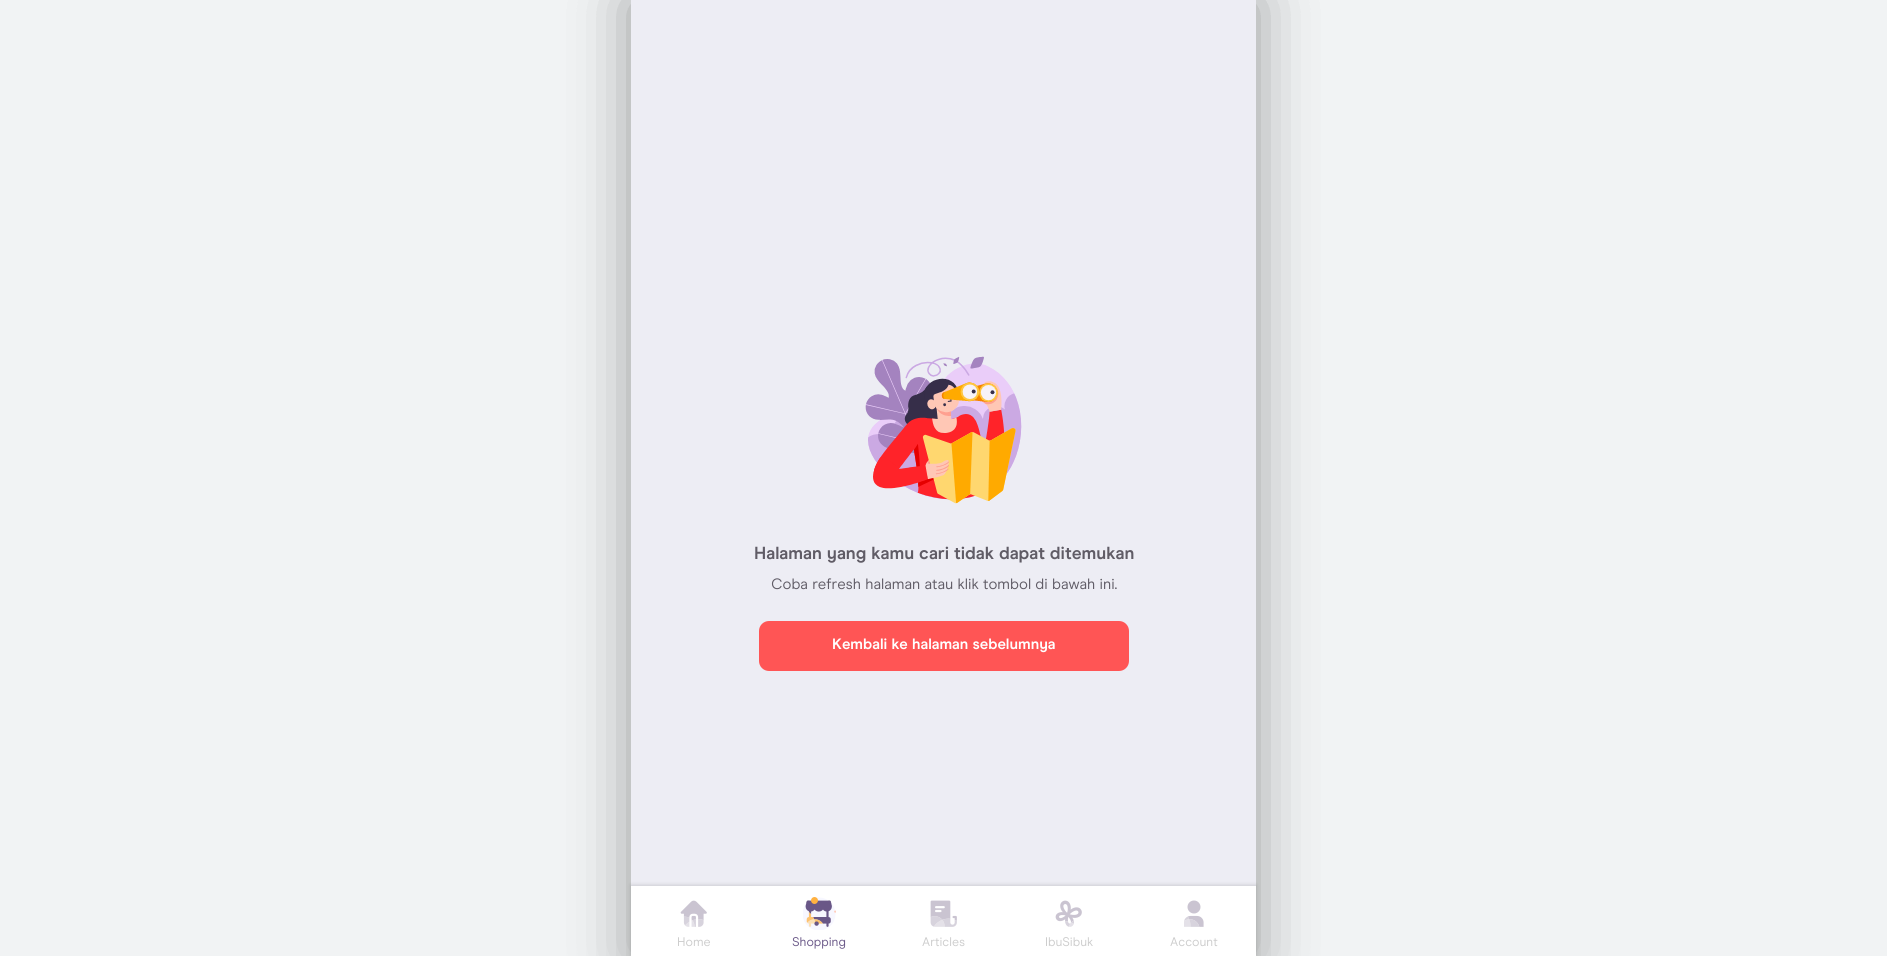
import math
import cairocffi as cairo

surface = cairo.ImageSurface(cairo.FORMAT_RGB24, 1887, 956)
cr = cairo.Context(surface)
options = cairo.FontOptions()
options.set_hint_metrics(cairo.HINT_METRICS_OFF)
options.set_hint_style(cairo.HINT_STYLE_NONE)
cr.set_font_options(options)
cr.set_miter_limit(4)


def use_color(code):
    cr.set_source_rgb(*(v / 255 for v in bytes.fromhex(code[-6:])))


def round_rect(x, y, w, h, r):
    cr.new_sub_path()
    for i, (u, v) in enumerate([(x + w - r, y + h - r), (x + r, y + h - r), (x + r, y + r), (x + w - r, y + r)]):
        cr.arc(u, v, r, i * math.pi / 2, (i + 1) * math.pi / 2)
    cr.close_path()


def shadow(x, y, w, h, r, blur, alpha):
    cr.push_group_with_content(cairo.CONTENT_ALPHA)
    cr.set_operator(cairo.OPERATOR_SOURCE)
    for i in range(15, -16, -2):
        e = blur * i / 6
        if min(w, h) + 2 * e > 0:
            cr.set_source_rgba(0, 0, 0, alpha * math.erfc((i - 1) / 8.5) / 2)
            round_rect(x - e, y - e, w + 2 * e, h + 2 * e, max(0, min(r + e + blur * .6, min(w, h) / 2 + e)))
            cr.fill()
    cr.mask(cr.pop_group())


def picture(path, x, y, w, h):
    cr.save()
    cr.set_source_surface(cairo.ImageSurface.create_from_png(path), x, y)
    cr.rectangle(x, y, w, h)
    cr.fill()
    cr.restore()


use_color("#f1f3f4")
cr.paint()
use_color("#000000")
shadow(631, 0, 625, 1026, 0, 30, 0.2)
shadow(631, 0, 625, 956, 0, 30, 0.2)
use_color("#ededf4")
cr.rectangle(631, 0, 625, 886)
cr.fill()
picture("img1.png", 865, 356, 157, 148)
cr.select_font_face("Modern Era", cairo.FONT_SLANT_NORMAL, cairo.FONT_WEIGHT_BOLD)
cr.set_font_size(17.5)
use_color("#605c66")
cr.move_to(754, 559)
cr.show_text("Halaman yang kamu cari tidak dapat ditemukan")
cr.select_font_face("Modern Era")
cr.set_font_size(15)
cr.move_to(771, 589)
cr.show_text("Coba refresh halaman atau klik tombol di bawah ini.")
use_color("#ff5555")
round_rect(759, 621, 370, 50, 10)
cr.fill()
cr.select_font_face("Modern Era", cairo.FONT_SLANT_NORMAL, cairo.FONT_WEIGHT_BOLD)
use_color("#ffffff")
cr.move_to(832, 649)
cr.show_text("Kembali ke halaman sebelumnya")
use_color("#000000")
shadow(631, 885, 625, 70, 0, 2, 0.15)
use_color("#ffffff")
cr.rectangle(631, 886, 625, 70)
cr.fill()
picture("img2.png", 680, 900, 27, 27)
cr.select_font_face("Modern Era")
cr.set_font_size(12.5)
use_color("#cccccc")
cr.move_to(677, 946)
cr.show_text("Home")
picture("img3.png", 803, 897, 33, 33)
use_color("#695787")
cr.move_to(792, 946)
cr.show_text("Shopping")
picture("img4.png", 930, 900, 27, 27)
use_color("#cccccc")
cr.move_to(922, 946)
cr.show_text("Articles")
picture("img5.png", 1055, 900, 27, 27)
cr.move_to(1045, 946)
cr.show_text("IbuSibuk")
picture("img6.png", 1184, 900, 20, 27)
cr.move_to(1170, 946)
cr.show_text("Account")
surface.write_to_png("result.png")
